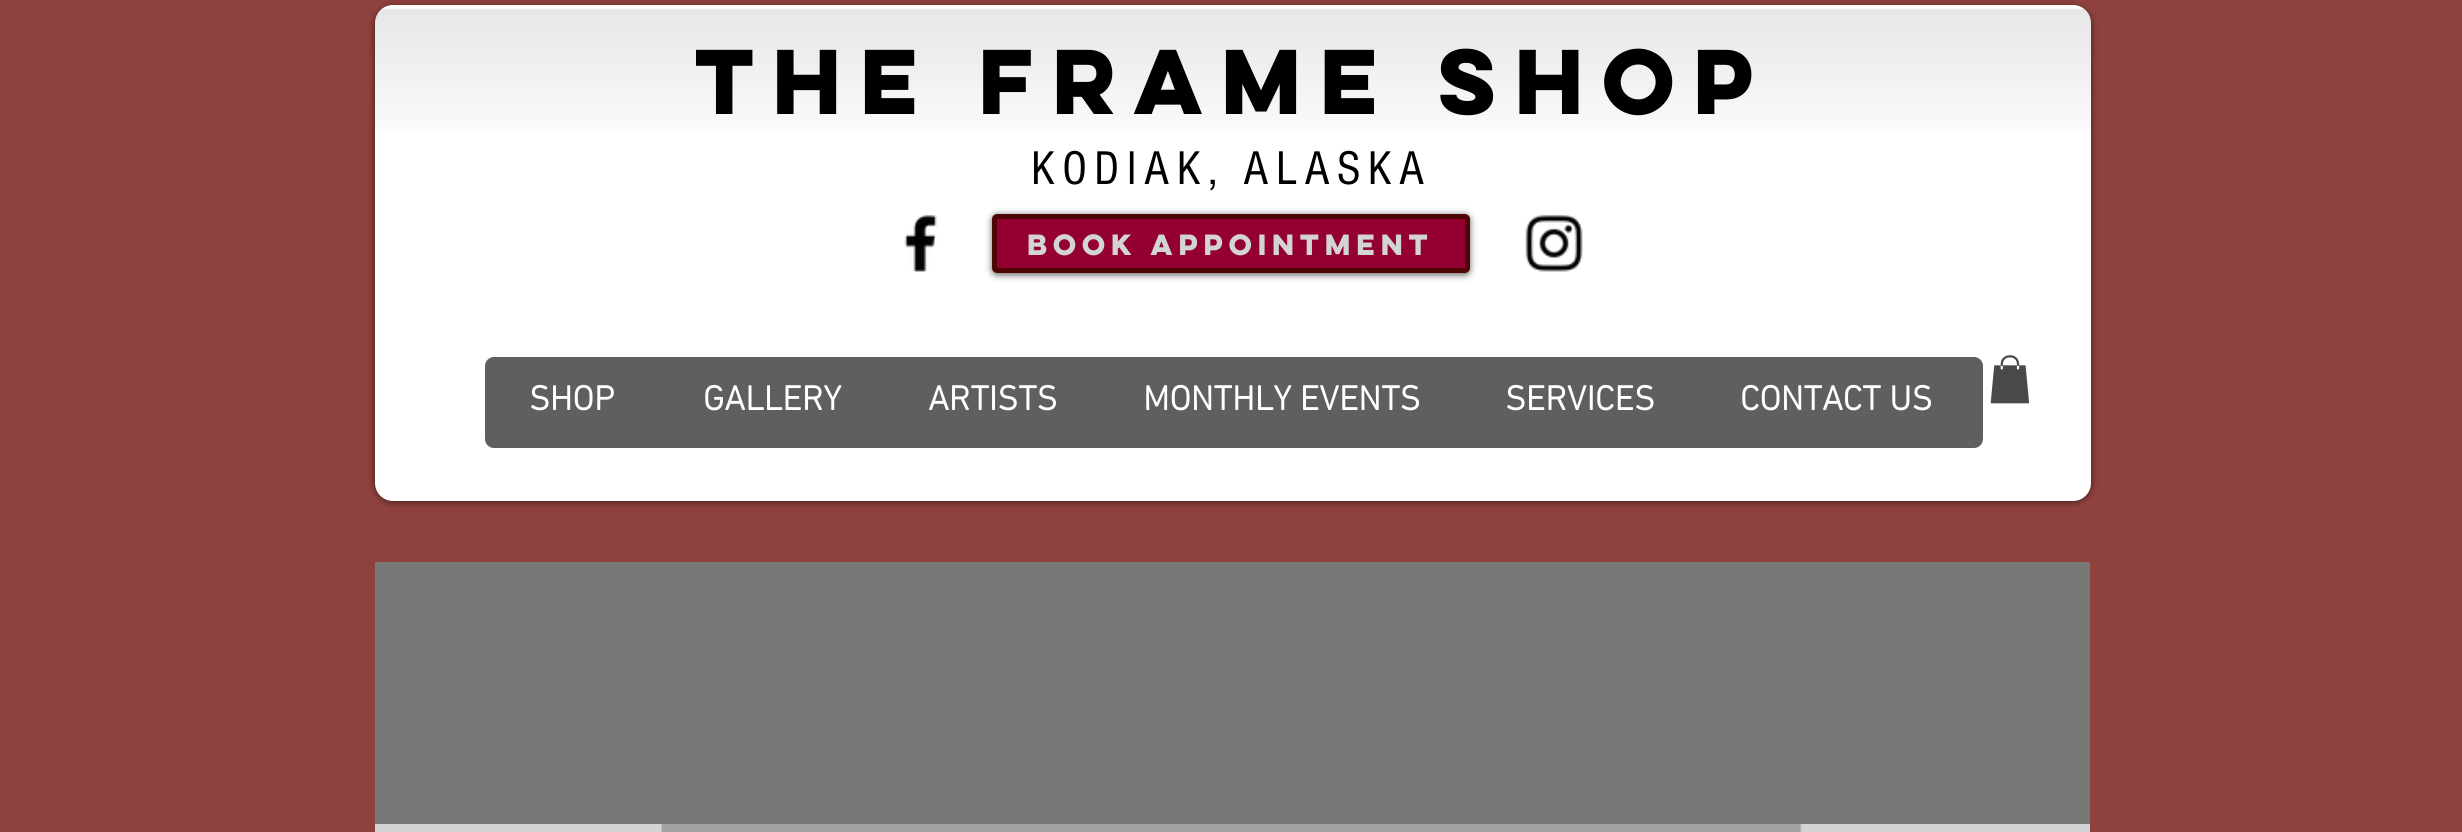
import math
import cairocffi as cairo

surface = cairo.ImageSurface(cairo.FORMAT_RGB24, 2462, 832)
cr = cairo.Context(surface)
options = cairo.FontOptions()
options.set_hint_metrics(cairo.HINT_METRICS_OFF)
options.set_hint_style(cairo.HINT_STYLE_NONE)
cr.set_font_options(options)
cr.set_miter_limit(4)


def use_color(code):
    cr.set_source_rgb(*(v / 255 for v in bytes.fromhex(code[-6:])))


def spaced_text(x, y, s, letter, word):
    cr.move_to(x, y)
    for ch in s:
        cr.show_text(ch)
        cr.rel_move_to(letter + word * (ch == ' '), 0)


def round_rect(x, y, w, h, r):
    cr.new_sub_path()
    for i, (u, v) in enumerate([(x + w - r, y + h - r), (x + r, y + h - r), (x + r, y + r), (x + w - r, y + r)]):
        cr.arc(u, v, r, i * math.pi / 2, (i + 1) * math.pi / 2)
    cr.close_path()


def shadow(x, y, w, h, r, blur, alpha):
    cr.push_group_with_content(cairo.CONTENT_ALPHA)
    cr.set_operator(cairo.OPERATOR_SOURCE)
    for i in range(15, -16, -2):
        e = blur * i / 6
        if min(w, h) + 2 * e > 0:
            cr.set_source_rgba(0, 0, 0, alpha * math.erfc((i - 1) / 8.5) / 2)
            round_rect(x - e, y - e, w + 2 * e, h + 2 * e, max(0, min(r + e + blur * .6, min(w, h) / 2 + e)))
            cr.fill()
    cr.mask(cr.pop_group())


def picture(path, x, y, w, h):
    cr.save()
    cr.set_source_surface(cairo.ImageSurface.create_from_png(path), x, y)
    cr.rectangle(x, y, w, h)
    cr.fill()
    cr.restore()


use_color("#8f413d")
cr.paint()
use_color("#000000")
shadow(375, 7, 1716, 495, 18, 3.5, 0.6)
use_color("#ffffff")
round_rect(375, 5, 1716, 496, 18)
cr.fill()
picture("img1.png", 375, 8, 1716, 121)
cr.select_font_face("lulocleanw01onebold", cairo.FONT_SLANT_NORMAL, cairo.FONT_WEIGHT_BOLD)
cr.set_font_size(82.25)
use_color("#000000")
cr.move_to(695, 114)
cr.show_text("THE FRAME SHOP")
cr.select_font_face("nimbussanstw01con")
cr.set_font_size(49)
spaced_text(1031, 184, "KODIAK, ALASKA", 7.3, 0)
picture("img2.png", 904, 214, 33, 58)
use_color("#000000")
shadow(992, 215, 478, 60, 5, 3.5, 0.6)
use_color("#950032")
round_rect(994.5, 216.5, 473, 54, 2.5)
cr.fill_preserve()
use_color("#4e0602")
cr.set_line_width(5)
cr.stroke()
cr.select_font_face("lulocleanw01onebold", cairo.FONT_SLANT_NORMAL, cairo.FONT_WEIGHT_BOLD)
cr.set_font_size(26.25)
use_color("#d3d5d4")
cr.move_to(1027, 255)
cr.show_text("BOOK APPOINTMENT")
picture("img3.png", 1525, 214, 58, 58)
use_color("#5f5e61")
round_rect(485, 357, 1498, 91, 9)
cr.fill()
picture("img4.png", 1990, 355, 40, 49)
cr.select_font_face("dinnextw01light", cairo.FONT_SLANT_NORMAL, cairo.FONT_WEIGHT_BOLD)
cr.set_font_size(35)
use_color("#ffffff")
cr.move_to(529, 410)
cr.show_text("SHOP")
cr.move_to(703, 410)
cr.show_text("GALLERY")
cr.move_to(928, 410)
cr.show_text("ARTISTS")
cr.move_to(1143, 410)
cr.show_text("MONTHLY EVENTS")
cr.move_to(1505, 410)
cr.show_text("SERVICES")
cr.move_to(1740, 410)
cr.show_text("CONTACT US")
use_color("#777775")
cr.rectangle(375, 562, 1715, 262)
cr.fill()
use_color("#d3d5d4")
cr.rectangle(375, 824, 1715, 8)
cr.fill()
picture("img5.png", 661, 824, 1141, 8)
surface.write_to_png("result.png")
